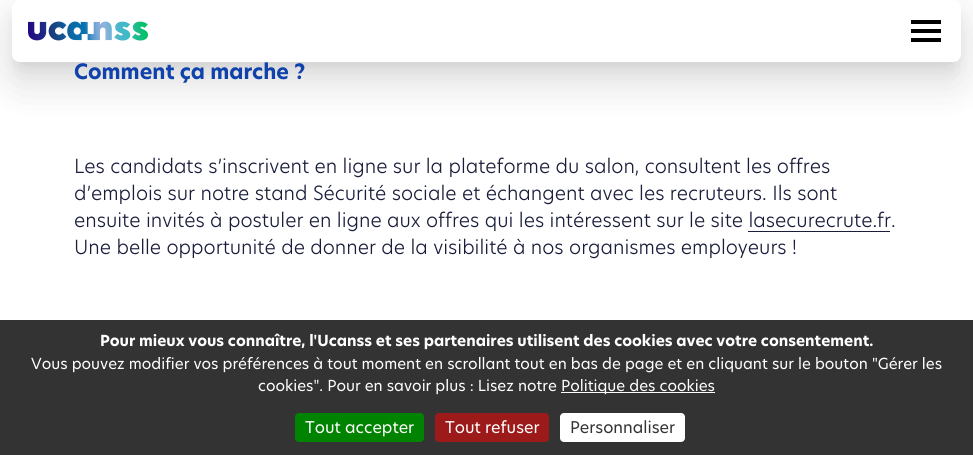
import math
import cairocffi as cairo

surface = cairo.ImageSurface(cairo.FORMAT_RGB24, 973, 455)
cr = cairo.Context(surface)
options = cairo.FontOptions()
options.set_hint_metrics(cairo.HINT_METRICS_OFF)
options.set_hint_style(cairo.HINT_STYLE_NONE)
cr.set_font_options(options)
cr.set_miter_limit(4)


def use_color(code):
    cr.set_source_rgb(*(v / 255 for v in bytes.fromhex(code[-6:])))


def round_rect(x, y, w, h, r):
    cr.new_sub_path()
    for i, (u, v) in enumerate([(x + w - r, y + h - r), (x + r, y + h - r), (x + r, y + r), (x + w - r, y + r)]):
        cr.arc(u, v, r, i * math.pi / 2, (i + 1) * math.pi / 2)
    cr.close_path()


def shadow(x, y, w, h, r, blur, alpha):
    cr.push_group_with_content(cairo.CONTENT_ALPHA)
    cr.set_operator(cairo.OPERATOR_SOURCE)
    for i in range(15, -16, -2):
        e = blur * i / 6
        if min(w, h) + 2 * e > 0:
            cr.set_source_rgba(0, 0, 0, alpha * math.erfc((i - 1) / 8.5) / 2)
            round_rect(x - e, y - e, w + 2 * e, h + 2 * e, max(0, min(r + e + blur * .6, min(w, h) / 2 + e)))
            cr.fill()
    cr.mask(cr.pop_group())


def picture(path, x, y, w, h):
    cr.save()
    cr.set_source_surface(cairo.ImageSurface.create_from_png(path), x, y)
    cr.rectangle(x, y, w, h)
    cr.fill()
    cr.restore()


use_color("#ffffff")
cr.paint()
use_color("#000000")
shadow(9, 21, 955, 68, 11, 19, 0.07)
shadow(4, 1, 965, 78, 16, 23, 0.06)
shadow(19, 18, 935, 48, 1, 7.5, 0.1)
use_color("#ffffff")
round_rect(12, 0, 949, 62, 8)
cr.fill()
picture("img1.png", 28, 21, 120, 20)
use_color("#000000")
cr.rectangle(911, 20, 30, 4)
cr.fill()
cr.rectangle(911, 29, 30, 4)
cr.fill()
cr.rectangle(911, 38, 30, 4)
cr.fill()
cr.select_font_face("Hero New", cairo.FONT_SLANT_NORMAL, cairo.FONT_WEIGHT_BOLD)
cr.set_font_size(20.75)
use_color("#1042ab")
cr.move_to(74, 79)
cr.show_text("Comment ça marche ?")
cr.select_font_face("Hero New Light")
cr.set_font_size(19.2)
use_color("#191d3a")
cr.move_to(74, 173)
cr.show_text("Les candidats s’inscrivent en ligne sur la plateforme du salon, consultent les offres")
cr.move_to(74, 200)
cr.show_text("d’emplois sur notre stand Sécurité sociale et échangent avec les recruteurs. Ils sont")
cr.move_to(74, 227)
cr.show_text("ensuite invités à postuler en ligne aux offres qui les intéressent sur le site lasecurecrute.fr.")
cr.rectangle(748, 231, 142, 1)
cr.fill()
cr.move_to(74, 254)
cr.show_text("Une belle opportunité de donner de la visibilité à nos organismes employeurs !")
use_color("#333333")
cr.rectangle(0, 320, 973, 135)
cr.fill()
cr.select_font_face("Hero New", cairo.FONT_SLANT_NORMAL, cairo.FONT_WEIGHT_BOLD)
cr.set_font_size(15)
use_color("#ffffff")
cr.move_to(100, 346)
cr.show_text("Pour mieux vous connaître, l'Ucanss et ses partenaires utilisent des cookies avec votre consentement.")
cr.select_font_face("Hero New")
cr.move_to(31, 369)
cr.show_text("Vous pouvez modifier vos préférences à tout moment en scrollant tout en bas de page et en cliquant sur le bouton \"Gérer les")
cr.move_to(258, 391)
cr.show_text("cookies\". Pour en savoir plus : Lisez notre")
cr.rectangle(561, 392, 154, 1)
cr.fill()
cr.move_to(561, 391)
cr.show_text("Politique des cookies")
use_color("#008300")
round_rect(295, 413, 129, 29, 4)
cr.fill()
cr.set_font_size(16)
use_color("#ffffff")
cr.move_to(305, 433)
cr.show_text("Tout accepter")
use_color("#9c1a1a")
round_rect(435, 413, 114, 29, 4)
cr.fill()
use_color("#ffffff")
cr.move_to(445, 433)
cr.show_text("Tout refuser")
round_rect(560, 413, 125, 29, 4)
cr.fill()
use_color("#333333")
cr.move_to(570, 433)
cr.show_text("Personnaliser")
surface.write_to_png("result.png")
